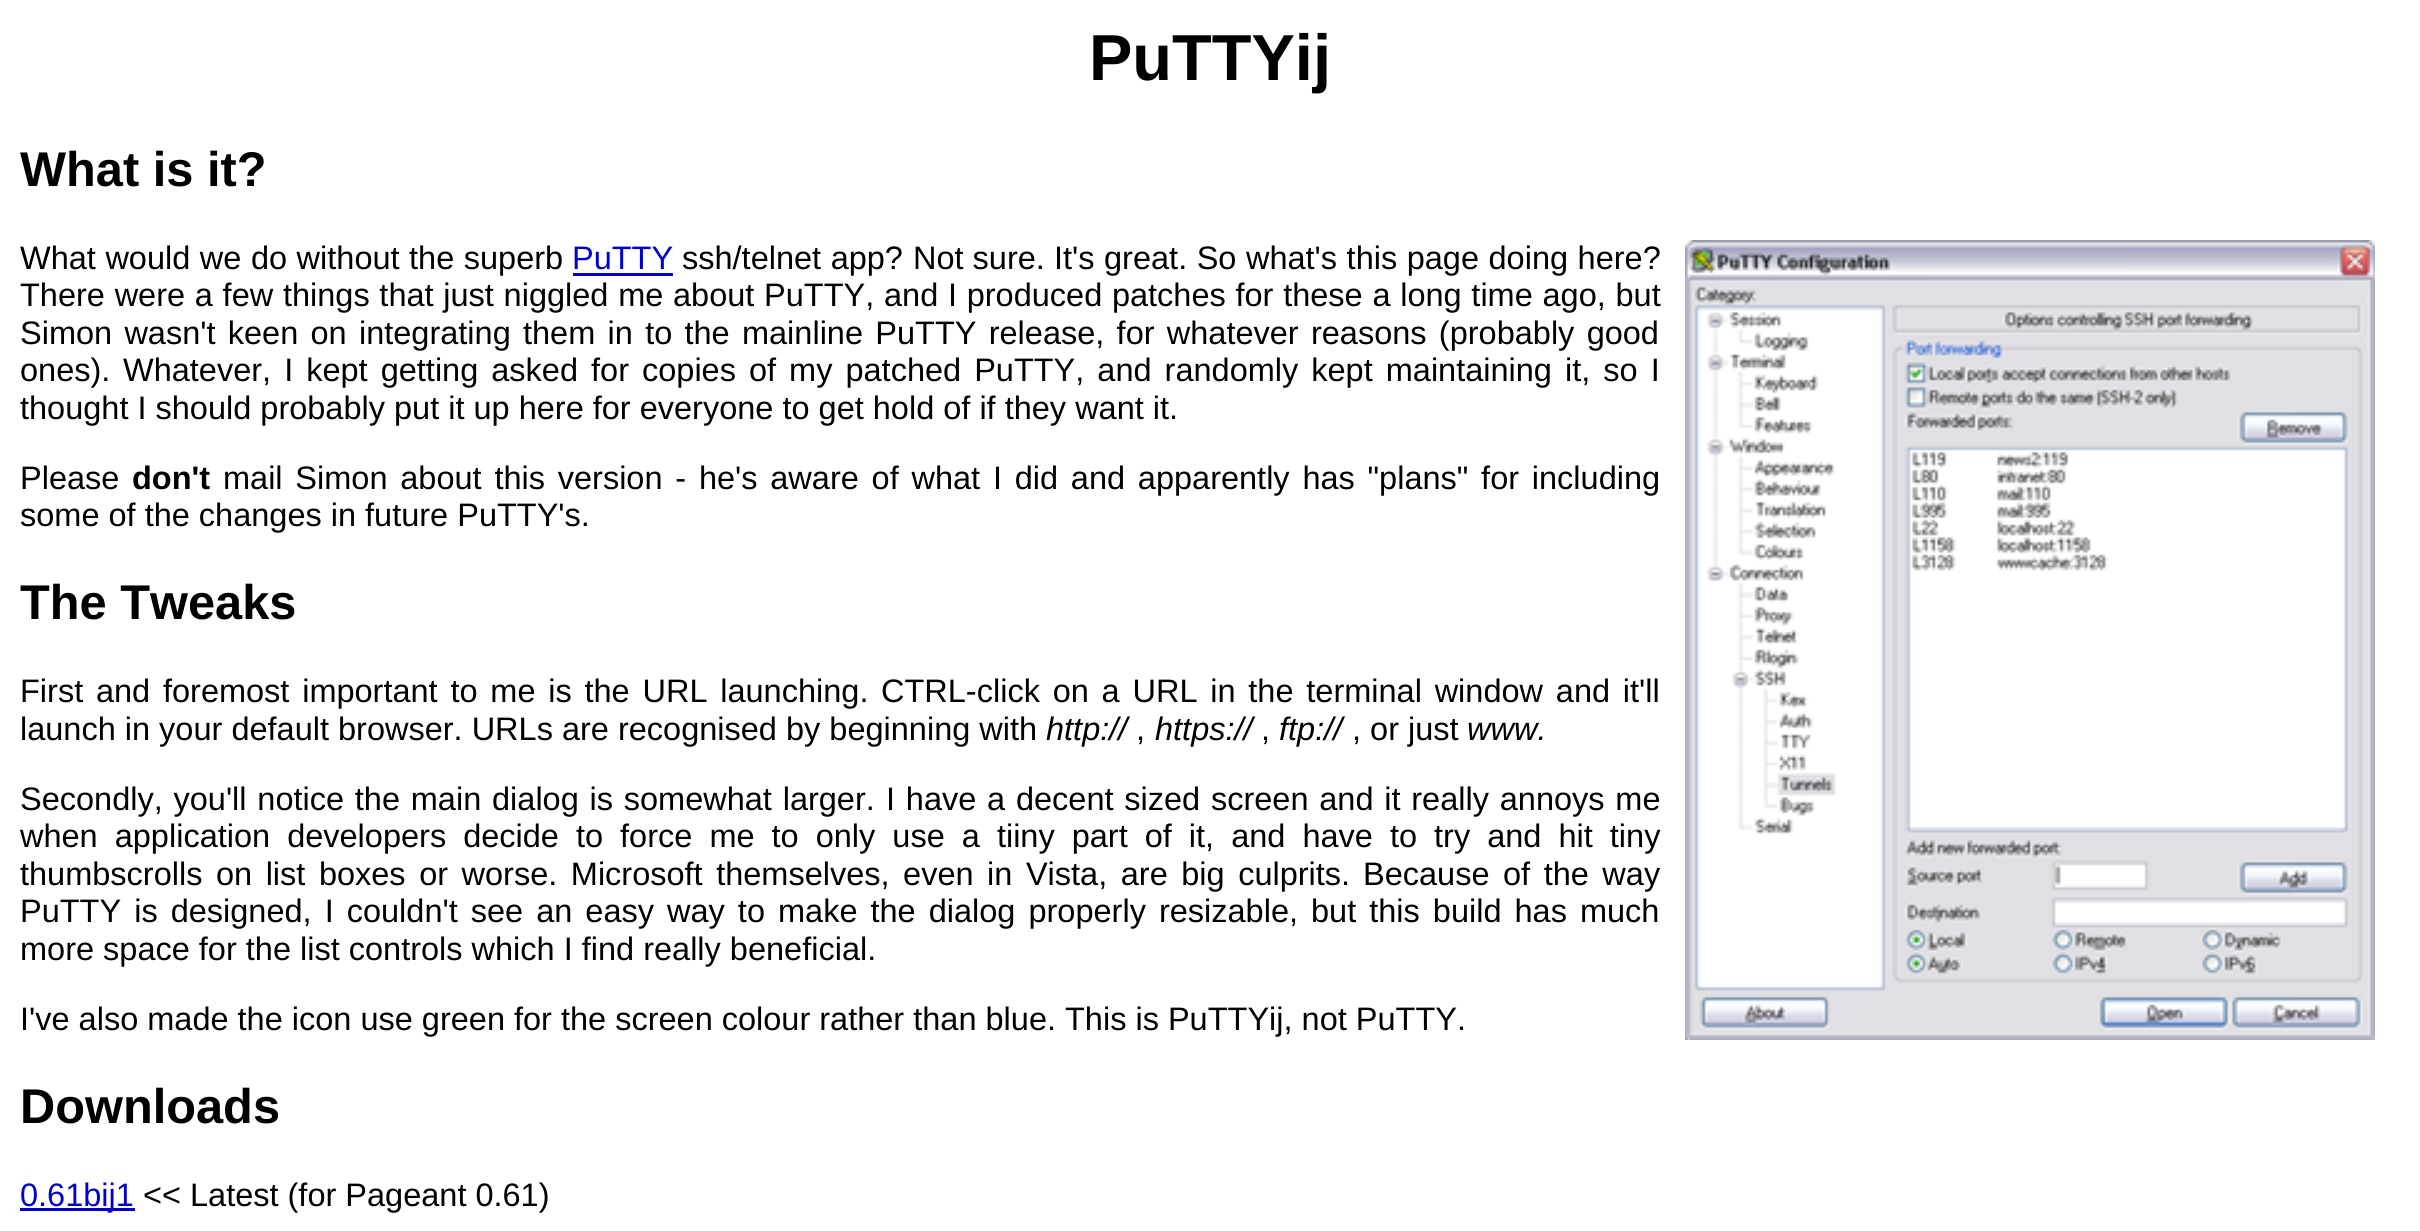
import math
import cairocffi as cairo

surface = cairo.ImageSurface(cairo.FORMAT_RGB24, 2420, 1231)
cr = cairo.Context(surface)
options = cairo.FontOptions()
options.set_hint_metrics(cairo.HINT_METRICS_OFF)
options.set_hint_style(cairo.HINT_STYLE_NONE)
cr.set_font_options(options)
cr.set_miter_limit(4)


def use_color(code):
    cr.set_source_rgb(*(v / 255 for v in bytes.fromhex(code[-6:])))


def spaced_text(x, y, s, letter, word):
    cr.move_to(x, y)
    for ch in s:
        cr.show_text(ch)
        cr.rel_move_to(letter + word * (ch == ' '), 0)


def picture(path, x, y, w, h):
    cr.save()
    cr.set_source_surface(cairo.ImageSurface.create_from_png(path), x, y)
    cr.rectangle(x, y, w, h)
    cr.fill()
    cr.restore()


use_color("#ffffff")
cr.paint()
cr.select_font_face("Liberation Sans", cairo.FONT_SLANT_NORMAL, cairo.FONT_WEIGHT_BOLD)
cr.set_font_size(65)
use_color("#000000")
cr.move_to(1089, 80)
cr.show_text("PuTTYij")
cr.set_font_size(48.75)
cr.move_to(20, 186)
cr.show_text("What is it?")
cr.select_font_face("Liberation Sans")
cr.set_font_size(32.5)
spaced_text(20, 269, "What would we do without the superb", 0, 0.5)
use_color("#0000cc")
cr.move_to(572, 269)
cr.show_text("PuTTY")
cr.rectangle(573, 273, 100, 3)
cr.fill()
use_color("#000000")
spaced_text(682, 269, "ssh/telnet app?", 0, 0.5)
cr.move_to(913, 269)
cr.show_text("Not sure.")
spaced_text(1054, 269, "It's great. So what's this page doing here?", 0, 0.5)
picture("img1.png", 1685, 240, 690, 800)
spaced_text(20, 306, "There were a few things that just niggled me about PuTTY, and I produced patches for these a long time ago, but", 0, 0.7)
spaced_text(20, 344, "Simon wasn't keen on integrating them in to the mainline PuTTY release, for whatever reasons (probably good", 0, 3.25)
cr.move_to(20, 381)
cr.show_text("ones).")
spaced_text(123, 381, "Whatever, I kept getting asked for copies of my patched PuTTY, and randomly kept maintaining it, so I", 0, 4)
cr.move_to(20, 419)
cr.show_text("thought I should probably put it up here for everyone to get hold of if they want it.")
cr.move_to(20, 489)
cr.show_text("Please")
cr.select_font_face("Liberation Sans", cairo.FONT_SLANT_NORMAL, cairo.FONT_WEIGHT_BOLD)
cr.move_to(132, 489)
cr.show_text("don't")
cr.select_font_face("Liberation Sans")
spaced_text(223, 489, "mail Simon about this version - he's aware of what I did and apparently has \"plans\" for including", 0, 3.75)
cr.move_to(20, 526)
cr.show_text("some of the changes in future PuTTY's.")
cr.select_font_face("Liberation Sans", cairo.FONT_SLANT_NORMAL, cairo.FONT_WEIGHT_BOLD)
cr.set_font_size(48.75)
cr.move_to(20, 619)
cr.show_text("The Tweaks")
cr.select_font_face("Liberation Sans")
cr.set_font_size(32.5)
spaced_text(20, 702, "First and foremost important to me is the URL launching.", 0, 3.75)
spaced_text(881, 702, "CTRL-click on a URL in the terminal window and it'll", 0, 3.75)
cr.move_to(20, 740)
cr.show_text("launch in your default browser. URLs are recognised by beginning with")
cr.select_font_face("Liberation Sans", cairo.FONT_SLANT_ITALIC)
cr.move_to(1046, 740)
cr.show_text("http://")
cr.select_font_face("Liberation Sans")
cr.move_to(1136, 740)
cr.show_text(",")
cr.select_font_face("Liberation Sans", cairo.FONT_SLANT_ITALIC)
cr.move_to(1155, 740)
cr.show_text("https://")
cr.select_font_face("Liberation Sans")
cr.move_to(1261, 740)
cr.show_text(",")
cr.select_font_face("Liberation Sans", cairo.FONT_SLANT_ITALIC)
cr.move_to(1279, 740)
cr.show_text("ftp://")
cr.select_font_face("Liberation Sans")
cr.move_to(1352, 740)
cr.show_text(", or just")
cr.select_font_face("Liberation Sans", cairo.FONT_SLANT_ITALIC)
cr.move_to(1467, 740)
cr.show_text("www.")
cr.select_font_face("Liberation Sans")
spaced_text(20, 810, "Secondly, you'll notice the main dialog is somewhat larger.", 0, 1.75)
spaced_text(886, 810, "I have a decent sized screen and it really annoys me", 0, 1.75)
spaced_text(20, 847, "when application developers decide to force me to only use a tiiny part of it, and have to try and hit tiny", 0, 8)
spaced_text(20, 885, "thumbscrolls on list boxes or worse. Microsoft themselves, even in Vista, are big culprits.", 0, 4.5)
spaced_text(1363, 885, "Because of the way", 0, 4.5)
spaced_text(20, 922, "PuTTY is designed, I couldn't see an easy way to make the dialog properly resizable, but this build has much", 0, 4)
cr.move_to(20, 960)
cr.show_text("more space for the list controls which I find really beneficial.")
cr.move_to(20, 1030)
cr.show_text("I've also made the icon use green for the screen colour rather than blue. This is PuTTYij, not PuTTY.")
cr.select_font_face("Liberation Sans", cairo.FONT_SLANT_NORMAL, cairo.FONT_WEIGHT_BOLD)
cr.set_font_size(48.75)
cr.move_to(20, 1123)
cr.show_text("Downloads")
use_color("#0000cc")
cr.rectangle(20, 1208, 115, 3)
cr.fill()
cr.select_font_face("Liberation Sans")
cr.set_font_size(32.5)
cr.move_to(20, 1206)
cr.show_text("0.61bij1")
use_color("#000000")
cr.move_to(143, 1206)
cr.show_text("<< Latest (for Pageant 0.61)")
surface.write_to_png("result.png")
